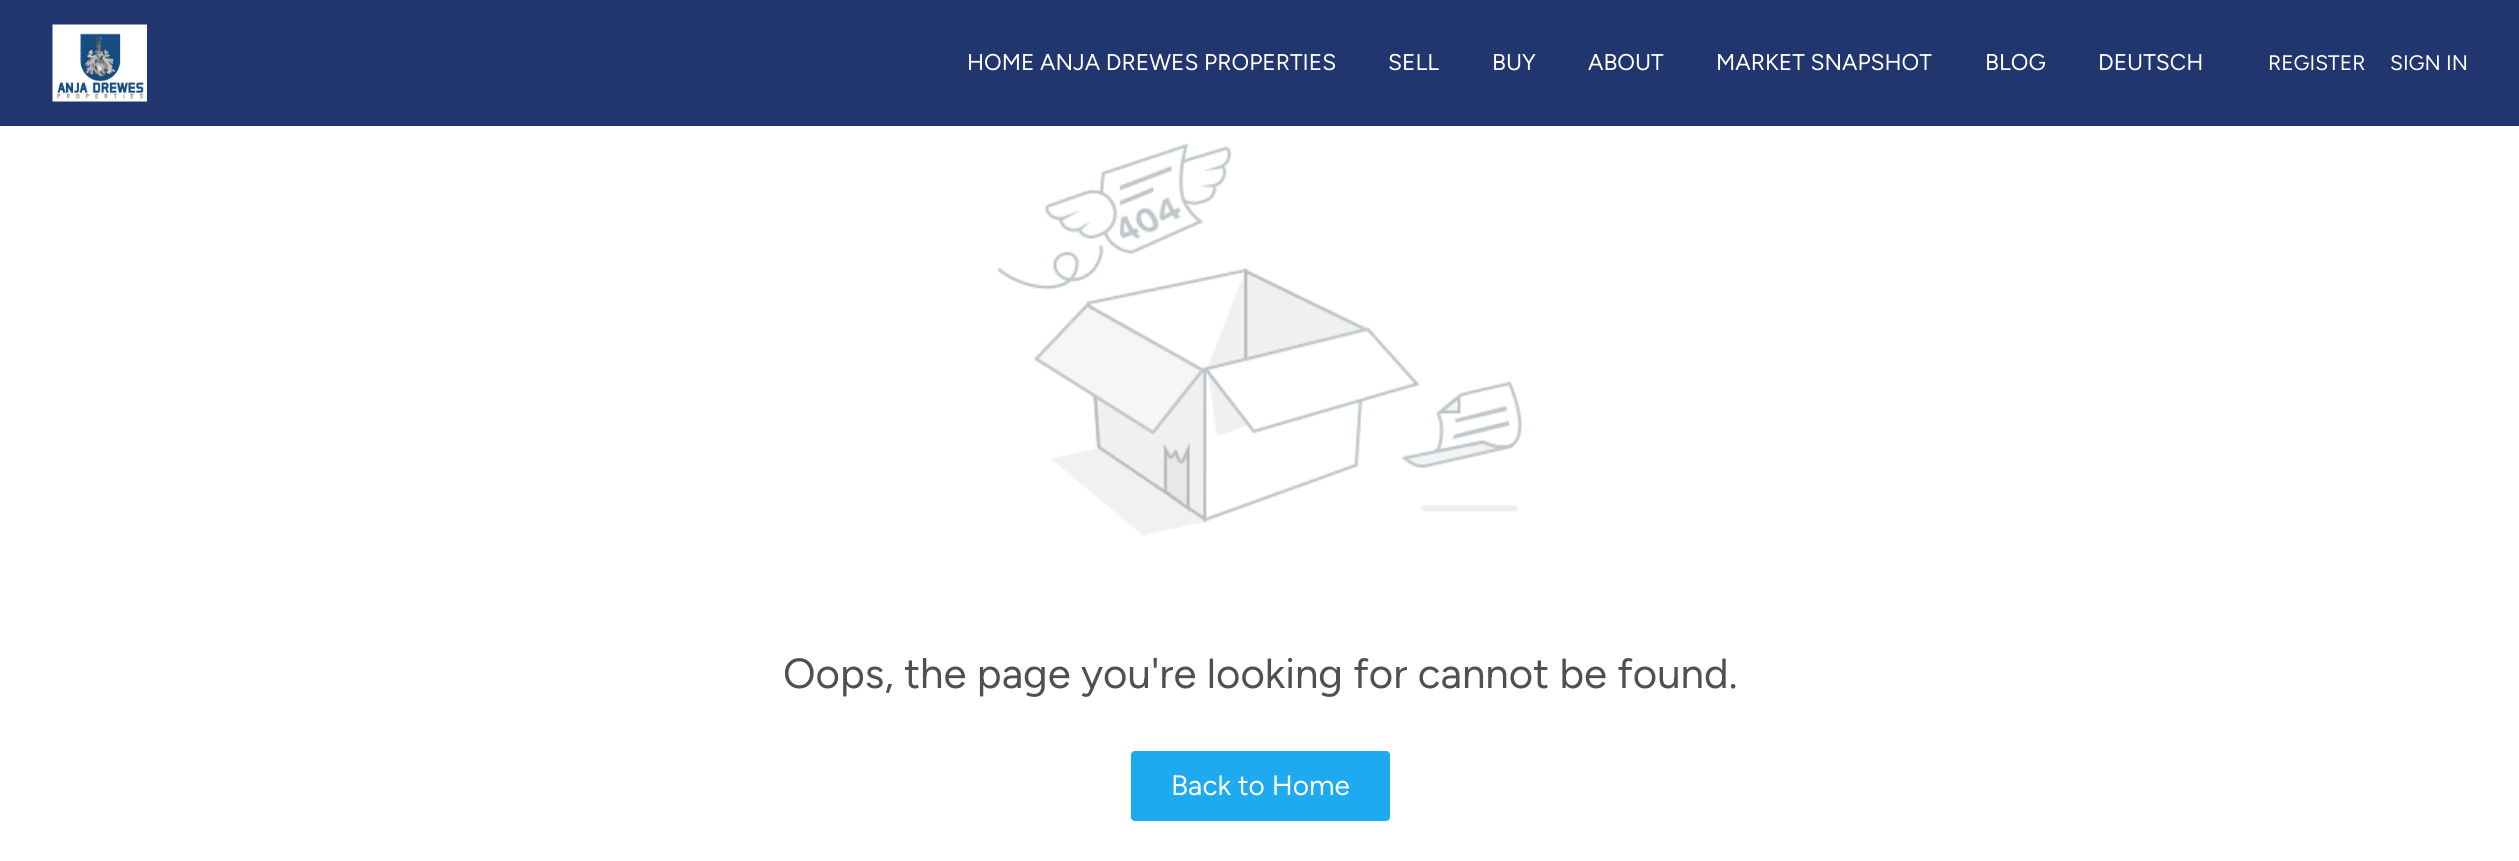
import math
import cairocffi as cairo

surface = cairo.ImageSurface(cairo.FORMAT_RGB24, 2519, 861)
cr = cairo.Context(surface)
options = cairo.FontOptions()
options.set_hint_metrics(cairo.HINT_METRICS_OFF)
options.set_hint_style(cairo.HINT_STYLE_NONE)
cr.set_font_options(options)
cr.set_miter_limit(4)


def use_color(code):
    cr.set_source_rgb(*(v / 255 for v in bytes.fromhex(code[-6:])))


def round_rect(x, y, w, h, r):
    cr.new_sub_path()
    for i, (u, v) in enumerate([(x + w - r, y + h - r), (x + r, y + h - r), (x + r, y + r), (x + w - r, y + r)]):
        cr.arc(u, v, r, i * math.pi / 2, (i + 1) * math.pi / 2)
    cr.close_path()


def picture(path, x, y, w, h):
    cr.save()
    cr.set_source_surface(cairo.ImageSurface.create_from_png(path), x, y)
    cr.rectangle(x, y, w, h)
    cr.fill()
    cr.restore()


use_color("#ffffff")
cr.paint()
use_color("#21356e")
cr.rectangle(0, 0, 2519, 126)
cr.fill()
picture("img1.png", 52, 24, 95, 78)
cr.select_font_face("Figtree")
cr.set_font_size(22.75)
use_color("#ffffff")
cr.move_to(967, 70)
cr.show_text("HOME ANJA DREWES PROPERTIES")
cr.move_to(1388, 70)
cr.show_text("SELL")
cr.move_to(1492, 70)
cr.show_text("BUY")
cr.move_to(1588, 70)
cr.show_text("ABOUT")
cr.move_to(1716, 70)
cr.show_text("MARKET SNAPSHOT")
cr.move_to(1985, 70)
cr.show_text("BLOG")
cr.move_to(2098, 70)
cr.show_text("DEUTSCH")
cr.set_font_size(21)
cr.move_to(2268, 70)
cr.show_text("REGISTER")
cr.move_to(2390, 70)
cr.show_text("SIGN IN")
picture("img2.png", 997, 143, 526, 393)
cr.set_font_size(42)
use_color("#505050")
cr.move_to(783, 688)
cr.show_text("Oops, the page you're looking for cannot be found.")
use_color("#1daaf0")
round_rect(1131, 751, 259, 70, 4)
cr.fill()
cr.set_font_size(28)
use_color("#ffffff")
cr.move_to(1171, 795)
cr.show_text("Back to Home")
surface.write_to_png("result.png")
